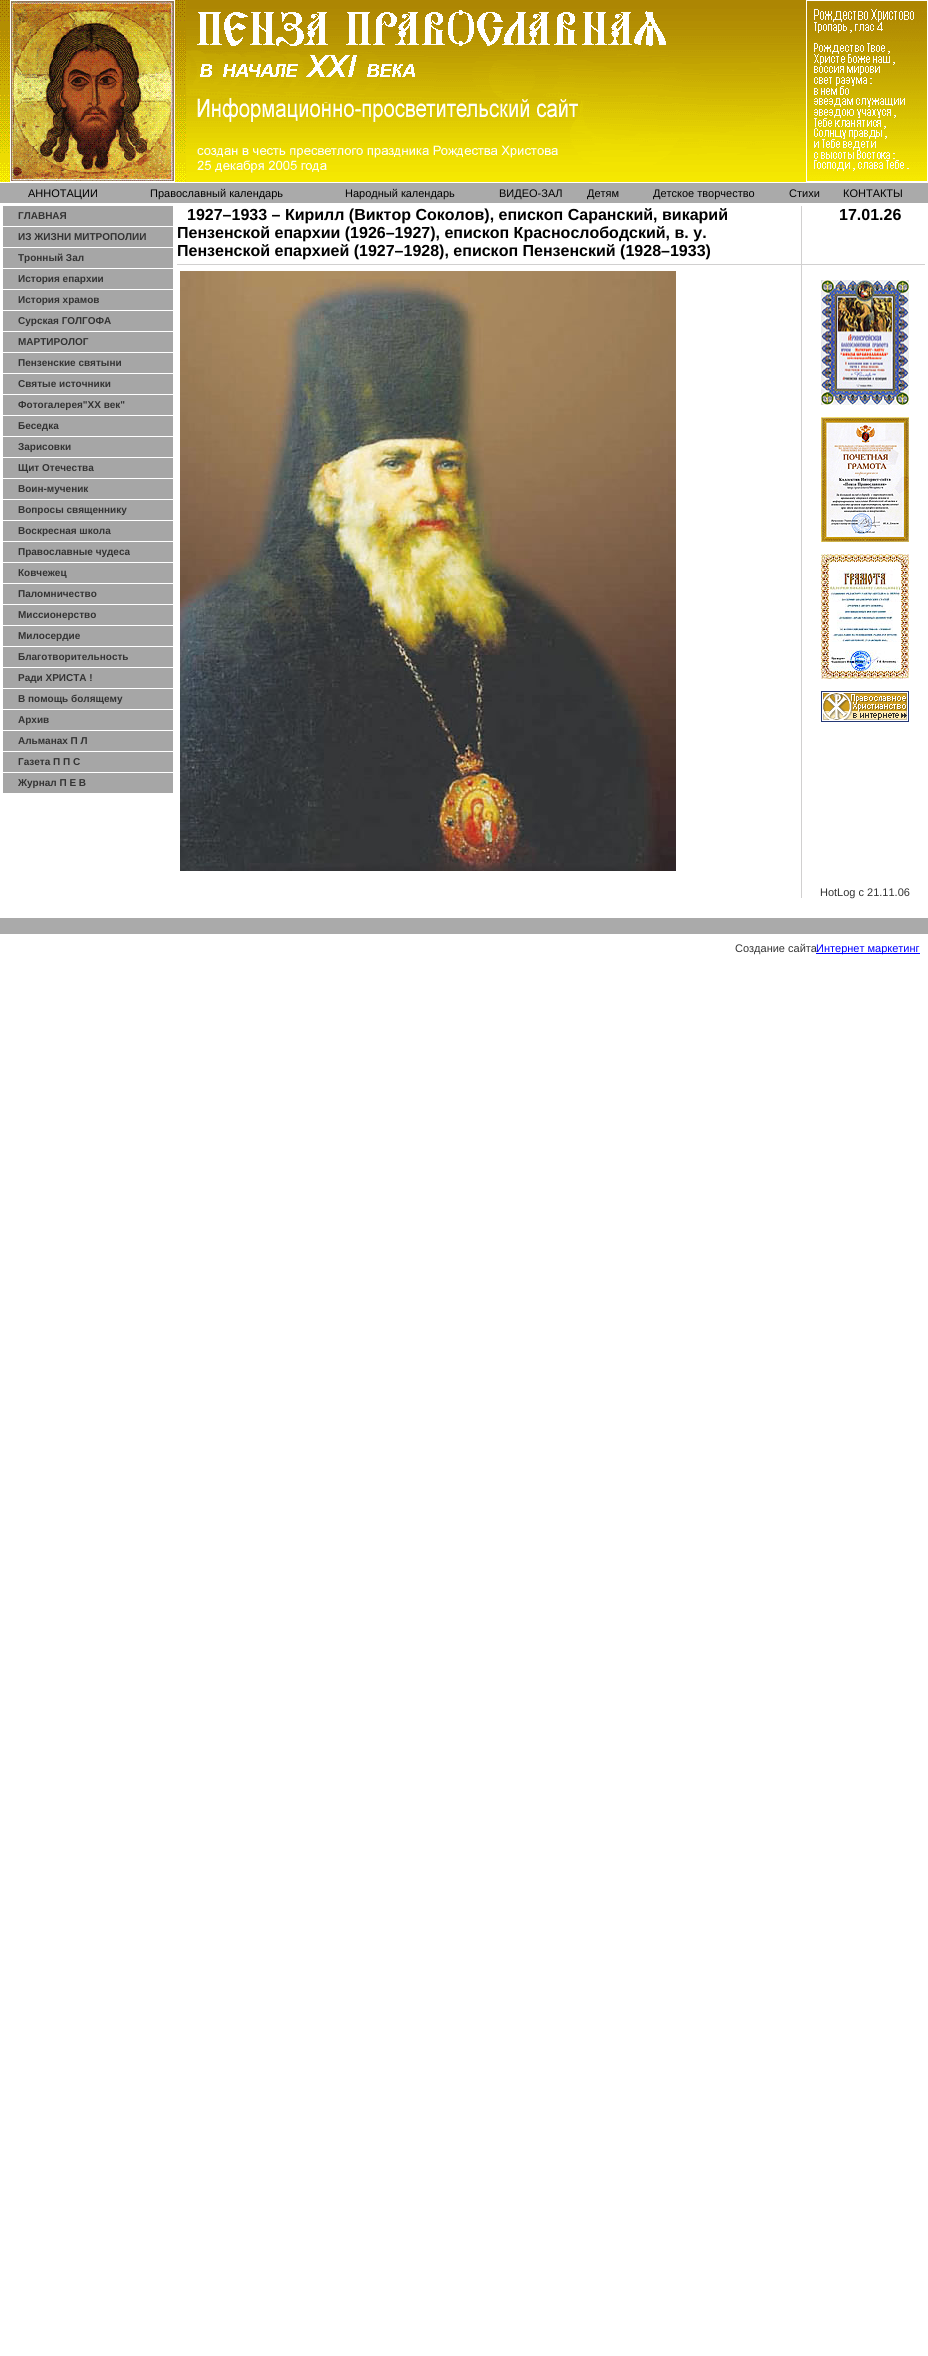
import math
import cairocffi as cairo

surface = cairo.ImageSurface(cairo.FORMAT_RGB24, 928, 2356)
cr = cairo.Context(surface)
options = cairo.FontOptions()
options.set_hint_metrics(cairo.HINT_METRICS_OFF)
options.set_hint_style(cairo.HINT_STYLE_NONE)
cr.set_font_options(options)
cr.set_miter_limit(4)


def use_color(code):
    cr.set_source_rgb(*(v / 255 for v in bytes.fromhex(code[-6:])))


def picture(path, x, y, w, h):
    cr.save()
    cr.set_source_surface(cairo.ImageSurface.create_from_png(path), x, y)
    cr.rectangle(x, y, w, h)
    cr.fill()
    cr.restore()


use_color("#ffffff")
cr.paint()
picture("img1.png", 0, 0, 186, 182)
picture("img2.png", 186, 0, 620, 182)
picture("img3.png", 807, 1, 120, 180)
use_color("#aaaaaa")
cr.rectangle(0, 183, 928, 20)
cr.fill()
cr.select_font_face("Liberation Sans")
cr.set_font_size(11)
use_color("#000000")
cr.move_to(28, 197)
cr.show_text("АННОТАЦИИ")
cr.move_to(150, 197)
cr.show_text("Православный календарь")
cr.move_to(345, 197)
cr.show_text("Народный календарь")
cr.move_to(499, 197)
cr.show_text("ВИДЕО-ЗАЛ")
cr.move_to(587, 197)
cr.show_text("Детям")
cr.move_to(653, 197)
cr.show_text("Детское творчество")
cr.move_to(789, 197)
cr.show_text("Стихи")
cr.move_to(843, 197)
cr.show_text("КОНТАКТЫ")
use_color("#a6a6a6")
cr.rectangle(3, 206, 170, 20)
cr.fill()
cr.select_font_face("Liberation Sans", cairo.FONT_SLANT_NORMAL, cairo.FONT_WEIGHT_BOLD)
cr.set_font_size(10)
use_color("#333333")
cr.move_to(18, 219)
cr.show_text("ГЛАВНАЯ")
use_color("#a6a6a6")
cr.rectangle(3, 227, 170, 20)
cr.fill()
use_color("#333333")
cr.move_to(18, 240)
cr.show_text("ИЗ ЖИЗНИ МИТРОПОЛИИ")
use_color("#a6a6a6")
cr.rectangle(3, 248, 170, 20)
cr.fill()
use_color("#333333")
cr.move_to(18, 261)
cr.show_text("Тронный Зал")
use_color("#a6a6a6")
cr.rectangle(3, 269, 170, 20)
cr.fill()
use_color("#333333")
cr.move_to(18, 282)
cr.show_text("История епархии")
use_color("#a6a6a6")
cr.rectangle(3, 290, 170, 20)
cr.fill()
use_color("#333333")
cr.move_to(18, 303)
cr.show_text("История храмов")
use_color("#a6a6a6")
cr.rectangle(3, 311, 170, 20)
cr.fill()
use_color("#333333")
cr.move_to(18, 324)
cr.show_text("Сурская ГОЛГОФА")
use_color("#a6a6a6")
cr.rectangle(3, 332, 170, 20)
cr.fill()
use_color("#333333")
cr.move_to(18, 345)
cr.show_text("МАРТИРОЛОГ")
use_color("#a6a6a6")
cr.rectangle(3, 353, 170, 20)
cr.fill()
use_color("#333333")
cr.move_to(18, 366)
cr.show_text("Пензенские святыни")
use_color("#a6a6a6")
cr.rectangle(3, 374, 170, 20)
cr.fill()
use_color("#333333")
cr.move_to(18, 387)
cr.show_text("Святые источники")
use_color("#a6a6a6")
cr.rectangle(3, 395, 170, 20)
cr.fill()
use_color("#333333")
cr.move_to(18, 408)
cr.show_text("Фотогалерея\"ХХ век\"")
use_color("#a6a6a6")
cr.rectangle(3, 416, 170, 20)
cr.fill()
use_color("#333333")
cr.move_to(18, 429)
cr.show_text("Беседка")
use_color("#a6a6a6")
cr.rectangle(3, 437, 170, 20)
cr.fill()
use_color("#333333")
cr.move_to(18, 450)
cr.show_text("Зарисовки")
use_color("#a6a6a6")
cr.rectangle(3, 458, 170, 20)
cr.fill()
use_color("#333333")
cr.move_to(18, 471)
cr.show_text("Щит Отечества")
use_color("#a6a6a6")
cr.rectangle(3, 479, 170, 20)
cr.fill()
use_color("#333333")
cr.move_to(18, 492)
cr.show_text("Воин-мученик")
use_color("#a6a6a6")
cr.rectangle(3, 500, 170, 20)
cr.fill()
use_color("#333333")
cr.move_to(18, 513)
cr.show_text("Вопросы священнику")
use_color("#a6a6a6")
cr.rectangle(3, 521, 170, 20)
cr.fill()
use_color("#333333")
cr.move_to(18, 534)
cr.show_text("Воскресная школа")
use_color("#a6a6a6")
cr.rectangle(3, 542, 170, 20)
cr.fill()
use_color("#333333")
cr.move_to(18, 555)
cr.show_text("Православные чудеса")
use_color("#a6a6a6")
cr.rectangle(3, 563, 170, 20)
cr.fill()
use_color("#333333")
cr.move_to(18, 576)
cr.show_text("Ковчежец")
use_color("#a6a6a6")
cr.rectangle(3, 584, 170, 20)
cr.fill()
use_color("#333333")
cr.move_to(18, 597)
cr.show_text("Паломничество")
use_color("#a6a6a6")
cr.rectangle(3, 605, 170, 20)
cr.fill()
use_color("#333333")
cr.move_to(18, 618)
cr.show_text("Миссионерство")
use_color("#a6a6a6")
cr.rectangle(3, 626, 170, 20)
cr.fill()
use_color("#333333")
cr.move_to(18, 639)
cr.show_text("Милосердие")
use_color("#a6a6a6")
cr.rectangle(3, 647, 170, 20)
cr.fill()
use_color("#333333")
cr.move_to(18, 660)
cr.show_text("Благотворительность")
use_color("#a6a6a6")
cr.rectangle(3, 668, 170, 20)
cr.fill()
use_color("#333333")
cr.move_to(18, 681)
cr.show_text("Ради ХРИСТА !")
use_color("#a6a6a6")
cr.rectangle(3, 689, 170, 20)
cr.fill()
use_color("#333333")
cr.move_to(18, 702)
cr.show_text("В помощь болящему")
use_color("#a6a6a6")
cr.rectangle(3, 710, 170, 20)
cr.fill()
use_color("#333333")
cr.move_to(18, 723)
cr.show_text("Архив")
use_color("#a6a6a6")
cr.rectangle(3, 731, 170, 20)
cr.fill()
use_color("#333333")
cr.move_to(18, 744)
cr.show_text("Альманах П Л")
use_color("#a6a6a6")
cr.rectangle(3, 752, 170, 20)
cr.fill()
use_color("#333333")
cr.move_to(18, 765)
cr.show_text("Газета П П С")
use_color("#a6a6a6")
cr.rectangle(3, 773, 170, 20)
cr.fill()
use_color("#333333")
cr.move_to(18, 786)
cr.show_text("Журнал П Е В")
cr.set_font_size(16)
use_color("#000000")
cr.move_to(187, 220)
cr.show_text("1927–1933 – Кирилл (Виктор Соколов), епископ Саранский, викарий")
cr.move_to(177, 238)
cr.show_text("Пензенской епархии (1926–1927), епископ Краснослободский, в. у.")
cr.move_to(177, 256)
cr.show_text("Пензенской епархией (1927–1928), епископ Пензенский (1928–1933)")
use_color("#d1d0d0")
cr.rectangle(801, 206, 1, 54)
cr.fill()
use_color("#000000")
cr.move_to(839, 220)
cr.show_text("17.01.26")
use_color("#d1d0d0")
cr.rectangle(177, 264, 620, 1)
cr.fill()
picture("img4.png", 797, 260, 8, 8)
cr.rectangle(805, 264, 120, 1)
cr.fill()
picture("img5.png", 180, 271, 496, 600)
cr.rectangle(801, 268, 1, 630)
cr.fill()
picture("img6.png", 821, 280, 88, 125)
picture("img7.png", 821, 417, 88, 125)
picture("img8.png", 821, 554, 88, 125)
picture("img9.png", 821, 691, 88, 31)
cr.select_font_face("Liberation Sans")
cr.set_font_size(11)
use_color("#333333")
cr.move_to(820, 896)
cr.show_text("HotLog с 21.11.06")
use_color("#aaaaaa")
cr.rectangle(0, 918, 928, 16)
cr.fill()
use_color("#333333")
cr.move_to(735, 952)
cr.show_text("Создание сайта")
use_color("#0000ff")
cr.rectangle(816, 953, 104, 1)
cr.fill()
cr.move_to(816, 952)
cr.show_text("Интернет маркетинг")
surface.write_to_png("result.png")
